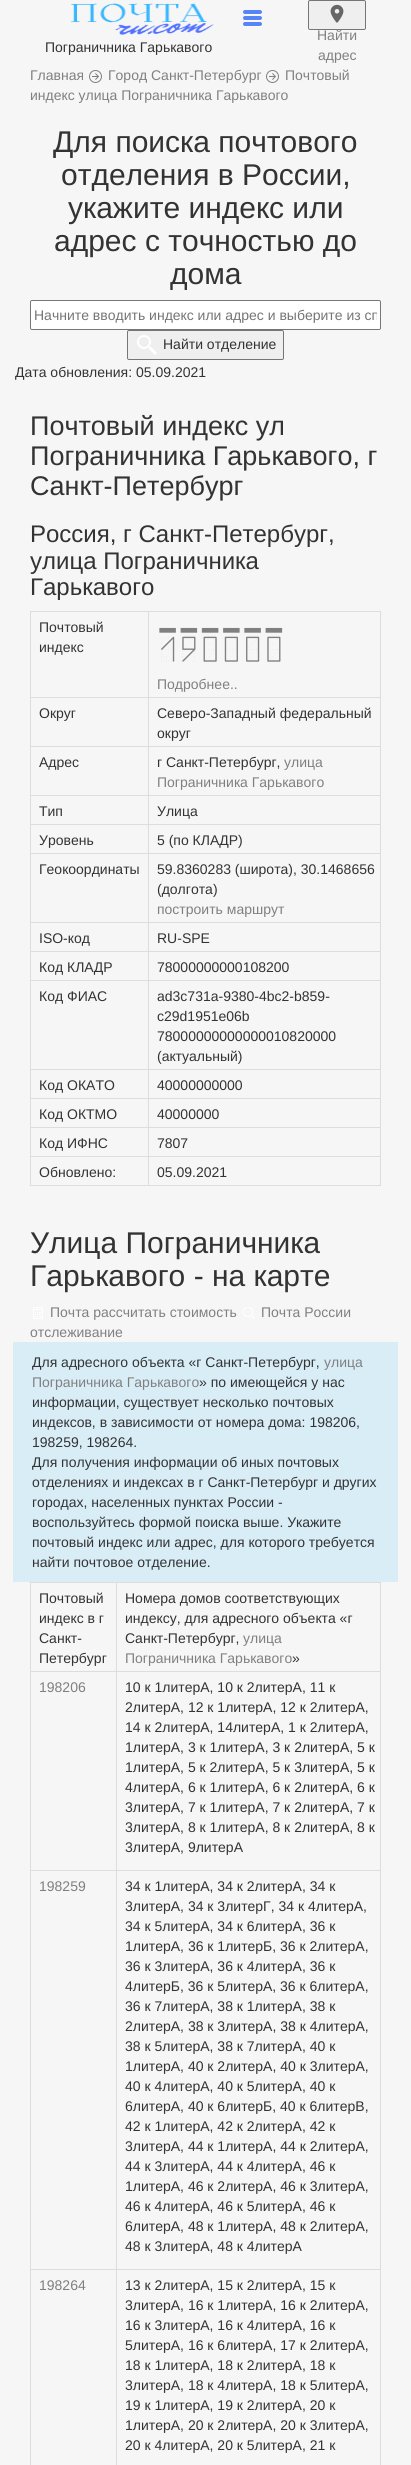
import math
import cairocffi as cairo

surface = cairo.ImageSurface(cairo.FORMAT_RGB24, 411, 2465)
cr = cairo.Context(surface)
options = cairo.FontOptions()
options.set_hint_metrics(cairo.HINT_METRICS_OFF)
options.set_hint_style(cairo.HINT_STYLE_NONE)
cr.set_font_options(options)
cr.set_miter_limit(4)


def use_color(code):
    cr.set_source_rgb(*(v / 255 for v in bytes.fromhex(code[-6:])))


def round_rect(x, y, w, h, r):
    cr.new_sub_path()
    for i, (u, v) in enumerate([(x + w - r, y + h - r), (x + r, y + h - r), (x + r, y + r), (x + w - r, y + r)]):
        cr.arc(u, v, r, i * math.pi / 2, (i + 1) * math.pi / 2)
    cr.close_path()


def picture(path, x, y, w, h):
    cr.save()
    cr.set_source_surface(cairo.ImageSurface.create_from_png(path), x, y)
    cr.rectangle(x, y, w, h)
    cr.fill()
    cr.restore()


use_color("#f6f6f6")
cr.paint()
picture("img1.png", 71, 3, 143, 32)
picture("img2.png", 243, 10, 19, 17)
cr.select_font_face("Liberation Sans")
cr.set_font_size(14)
use_color("#333333")
cr.move_to(45, 52)
cr.show_text("Пограничника Гарькавого")
use_color("#efefef")
round_rect(308.5, 0.5, 57, 29, 1.5)
cr.fill_preserve()
use_color("#767676")
cr.set_line_width(1)
cr.stroke()
picture("img3.png", 330, 4, 14, 19)
use_color("#808080")
cr.move_to(317, 40)
cr.show_text("Найти")
cr.move_to(318, 60)
cr.show_text("адрес")
cr.move_to(30, 80)
cr.show_text("Главная")
picture("img4.png", 89, 70, 13, 13)
cr.move_to(108, 80)
cr.show_text("Город Санкт-Петербург")
picture("img4.png", 266, 70, 13, 13)
cr.move_to(285, 80)
cr.show_text("Почтовый")
cr.move_to(30, 100)
cr.show_text("индекс улица Пограничника Гарькавого")
cr.set_font_size(30)
use_color("#333333")
cr.move_to(53, 152)
cr.show_text("Для поиска почтового")
cr.move_to(61, 185)
cr.show_text("отделения в России,")
cr.move_to(68, 218)
cr.show_text("укажите индекс или")
cr.move_to(54, 251)
cr.show_text("адрес с точностью до")
cr.move_to(170, 284)
cr.show_text("дома")
use_color("#ffffff")
round_rect(30.5, 300.5, 350, 29, 1.5)
cr.fill_preserve()
use_color("#767676")
cr.stroke()
cr.save()
cr.rectangle(34, 307, 343, 16)
cr.clip()
cr.set_font_size(14)
use_color("#757575")
cr.move_to(34, 320)
cr.show_text("Начните вводить индекс или адрес и выберите из сп")
cr.restore()
use_color("#efefef")
round_rect(127.5, 330.5, 156, 29, 1.5)
cr.fill_preserve()
use_color("#767676")
cr.stroke()
picture("img5.png", 137, 335, 20, 20)
cr.set_font_size(14)
use_color("#333333")
cr.move_to(163, 349)
cr.show_text("Найти отделение")
cr.move_to(15, 377)
cr.show_text("Дата обновления: 05.09.2021")
cr.set_font_size(27)
cr.move_to(30, 435)
cr.show_text("Почтовый индекс ул")
cr.move_to(30, 465)
cr.show_text("Пограничника Гарькавого, г")
cr.move_to(30, 495)
cr.show_text("Санкт-Петербург")
cr.set_font_size(24)
cr.move_to(30, 542)
cr.show_text("Россия, г Санкт-Петербург,")
cr.move_to(30, 569)
cr.show_text("улица Пограничника")
cr.move_to(30, 595)
cr.show_text("Гарькавого")
use_color("#dddddd")
cr.rectangle(30, 611, 351, 1)
cr.fill()
cr.rectangle(380, 611, 1, 575)
cr.fill()
cr.rectangle(30, 1185, 351, 1)
cr.fill()
cr.rectangle(30, 611, 1, 575)
cr.fill()
cr.set_font_size(14)
use_color("#333333")
cr.move_to(39, 632)
cr.show_text("Почтовый")
cr.move_to(39, 652)
cr.show_text("индекс")
use_color("#dddddd")
cr.rectangle(148, 697, 233, 1)
cr.fill()
cr.rectangle(148, 746, 233, 1)
cr.fill()
cr.rectangle(148, 795, 233, 1)
cr.fill()
cr.rectangle(148, 824, 233, 1)
cr.fill()
cr.rectangle(148, 853, 233, 1)
cr.fill()
cr.rectangle(148, 922, 233, 1)
cr.fill()
cr.rectangle(148, 951, 233, 1)
cr.fill()
cr.rectangle(148, 980, 233, 1)
cr.fill()
cr.rectangle(148, 1069, 233, 1)
cr.fill()
cr.rectangle(148, 1098, 233, 1)
cr.fill()
cr.rectangle(148, 1127, 233, 1)
cr.fill()
cr.rectangle(148, 1156, 233, 1)
cr.fill()
cr.rectangle(148, 1156, 1, 30)
cr.fill()
cr.rectangle(30, 1156, 119, 1)
cr.fill()
cr.rectangle(148, 1127, 1, 30)
cr.fill()
cr.rectangle(30, 1127, 119, 1)
cr.fill()
cr.rectangle(148, 1098, 1, 30)
cr.fill()
cr.rectangle(30, 1098, 119, 1)
cr.fill()
cr.rectangle(148, 1069, 1, 30)
cr.fill()
cr.rectangle(30, 1069, 119, 1)
cr.fill()
cr.rectangle(148, 980, 1, 90)
cr.fill()
cr.rectangle(30, 980, 119, 1)
cr.fill()
cr.rectangle(148, 951, 1, 30)
cr.fill()
cr.rectangle(30, 951, 119, 1)
cr.fill()
cr.rectangle(148, 922, 1, 30)
cr.fill()
cr.rectangle(30, 922, 119, 1)
cr.fill()
cr.rectangle(148, 853, 1, 70)
cr.fill()
cr.rectangle(30, 853, 119, 1)
cr.fill()
cr.rectangle(148, 824, 1, 30)
cr.fill()
cr.rectangle(30, 824, 119, 1)
cr.fill()
cr.rectangle(148, 795, 1, 30)
cr.fill()
cr.rectangle(30, 795, 119, 1)
cr.fill()
cr.rectangle(148, 746, 1, 50)
cr.fill()
cr.rectangle(30, 746, 119, 1)
cr.fill()
cr.rectangle(148, 697, 1, 50)
cr.fill()
cr.rectangle(30, 697, 119, 1)
cr.fill()
cr.rectangle(148, 611, 1, 87)
cr.fill()
cr.select_font_face("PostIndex")
cr.set_font_size(40)
use_color("#808080")
cr.move_to(157, 661)
cr.show_text("190000")
cr.select_font_face("Liberation Sans")
cr.set_font_size(14)
cr.move_to(157, 689)
cr.show_text("Подробнее..")
use_color("#333333")
cr.move_to(39, 718)
cr.show_text("Округ")
cr.move_to(157, 718)
cr.show_text("Северо-Западный федеральный")
cr.move_to(157, 738)
cr.show_text("округ")
cr.move_to(39, 767)
cr.show_text("Адрес")
cr.move_to(157, 767)
cr.show_text("г Санкт-Петербург,")
use_color("#808080")
cr.move_to(284, 767)
cr.show_text("улица")
cr.move_to(157, 787)
cr.show_text("Пограничника Гарькавого")
use_color("#333333")
cr.move_to(39, 816)
cr.show_text("Тип")
cr.move_to(157, 816)
cr.show_text("Улица")
cr.move_to(39, 845)
cr.show_text("Уровень")
cr.move_to(157, 845)
cr.show_text("5 (по КЛАДР)")
cr.move_to(39, 874)
cr.show_text("Геокоординаты")
cr.move_to(157, 874)
cr.show_text("59.8360283 (широта), 30.1468656")
cr.move_to(157, 894)
cr.show_text("(долгота)")
use_color("#808080")
cr.move_to(157, 914)
cr.show_text("построить маршрут")
use_color("#333333")
cr.move_to(39, 943)
cr.show_text("ISO-код")
cr.move_to(157, 943)
cr.show_text("RU-SPE")
cr.move_to(39, 972)
cr.show_text("Код КЛАДР")
cr.move_to(157, 972)
cr.show_text("78000000000108200")
cr.move_to(39, 1001)
cr.show_text("Код ФИАС")
cr.move_to(157, 1001)
cr.show_text("ad3c731a-9380-4bc2-b859-")
cr.move_to(157, 1021)
cr.show_text("c29d1951e06b")
cr.move_to(157, 1041)
cr.show_text("78000000000000010820000")
cr.move_to(157, 1061)
cr.show_text("(актуальный)")
cr.move_to(39, 1090)
cr.show_text("Код ОКАТО")
cr.move_to(157, 1090)
cr.show_text("40000000000")
cr.move_to(39, 1119)
cr.show_text("Код ОКТМО")
cr.move_to(157, 1119)
cr.show_text("40000000")
cr.move_to(39, 1148)
cr.show_text("Код ИФНС")
cr.move_to(157, 1148)
cr.show_text("7807")
cr.move_to(39, 1177)
cr.show_text("Обновлено:")
cr.move_to(157, 1177)
cr.show_text("05.09.2021")
cr.set_font_size(30)
cr.move_to(30, 1253)
cr.show_text("Улица Пограничника")
cr.move_to(30, 1286)
cr.show_text("Гарькавого - на карте")
picture("img6.png", 33, 1307, 10, 12)
cr.set_font_size(14)
use_color("#808080")
cr.move_to(50, 1317)
cr.show_text("Почта рассчитать стоимость")
picture("img7.png", 243, 1307, 12, 12)
cr.move_to(261, 1317)
cr.show_text("Почта России")
cr.move_to(30, 1337)
cr.show_text("отслеживание")
use_color("#d9edf7")
cr.rectangle(13, 1342, 385, 240)
cr.fill()
use_color("#333333")
cr.move_to(32, 1367)
cr.show_text("Для адресного объекта «г Санкт-Петербург,")
use_color("#808080")
cr.move_to(324, 1367)
cr.show_text("улица")
cr.move_to(32, 1387)
cr.show_text("Пограничника Гарькавого")
use_color("#333333")
cr.move_to(199, 1387)
cr.show_text("» по имеющейся у нас")
cr.move_to(32, 1407)
cr.show_text("информации, существует несколько почтовых")
cr.move_to(32, 1427)
cr.show_text("индексов, в зависимости от номера дома: 198206,")
cr.move_to(32, 1447)
cr.show_text("198259, 198264.")
cr.move_to(32, 1467)
cr.show_text("Для получения информации об иных почтовых")
cr.move_to(32, 1487)
cr.show_text("отделениях и индексах в г Санкт-Петербург и других")
cr.move_to(32, 1507)
cr.show_text("городах, населенных пунктах России -")
cr.move_to(32, 1527)
cr.show_text("воспользуйтесь формой поиска выше. Укажите")
cr.move_to(32, 1547)
cr.show_text("почтовый индекс или адрес, для которого требуется")
cr.move_to(32, 1567)
cr.show_text("найти почтовое отделение.")
use_color("#dddddd")
cr.rectangle(30, 1582, 351, 1)
cr.fill()
cr.rectangle(380, 1582, 1, 883)
cr.fill()
cr.rectangle(30, 1582, 1, 883)
cr.fill()
use_color("#333333")
cr.move_to(39, 1603)
cr.show_text("Почтовый")
cr.move_to(39, 1623)
cr.show_text("индекс в г")
cr.move_to(39, 1643)
cr.show_text("Санкт-")
cr.move_to(39, 1663)
cr.show_text("Петербург")
use_color("#dddddd")
cr.rectangle(116, 1671, 265, 1)
cr.fill()
cr.rectangle(116, 1870, 265, 1)
cr.fill()
cr.rectangle(116, 2269, 265, 1)
cr.fill()
cr.rectangle(116, 2269, 1, 196)
cr.fill()
cr.rectangle(30, 2269, 87, 1)
cr.fill()
cr.rectangle(116, 1870, 1, 400)
cr.fill()
cr.rectangle(30, 1870, 87, 1)
cr.fill()
cr.rectangle(116, 1671, 1, 200)
cr.fill()
cr.rectangle(30, 1671, 87, 1)
cr.fill()
cr.rectangle(116, 1582, 1, 90)
cr.fill()
use_color("#333333")
cr.move_to(125, 1603)
cr.show_text("Номера домов соответствующих")
cr.move_to(125, 1623)
cr.show_text("индексу, для адресного объекта «г")
cr.move_to(125, 1643)
cr.show_text("Санкт-Петербург,")
use_color("#808080")
cr.move_to(243, 1643)
cr.show_text("улица")
cr.move_to(125, 1663)
cr.show_text("Пограничника Гарькавого")
use_color("#333333")
cr.move_to(292, 1663)
cr.show_text("»")
use_color("#808080")
cr.move_to(39, 1692)
cr.show_text("198206")
use_color("#333333")
cr.move_to(125, 1692)
cr.show_text("10 к 1литерА, 10 к 2литерА, 11 к")
cr.move_to(125, 1712)
cr.show_text("2литерА, 12 к 1литерА, 12 к 2литерА,")
cr.move_to(125, 1732)
cr.show_text("14 к 2литерА, 14литерА, 1 к 2литерА,")
cr.move_to(125, 1752)
cr.show_text("1литерА, 3 к 1литерА, 3 к 2литерА, 5 к")
cr.move_to(125, 1772)
cr.show_text("1литерА, 5 к 2литерА, 5 к 3литерА, 5 к")
cr.move_to(125, 1792)
cr.show_text("4литерА, 6 к 1литерА, 6 к 2литерА, 6 к")
cr.move_to(125, 1812)
cr.show_text("3литерА, 7 к 1литерА, 7 к 2литерА, 7 к")
cr.move_to(125, 1832)
cr.show_text("3литерА, 8 к 1литерА, 8 к 2литерА, 8 к")
cr.move_to(125, 1852)
cr.show_text("3литерА, 9литерА")
use_color("#808080")
cr.move_to(39, 1891)
cr.show_text("198259")
use_color("#333333")
cr.move_to(125, 1891)
cr.show_text("34 к 1литерА, 34 к 2литерА, 34 к")
cr.move_to(125, 1911)
cr.show_text("3литерА, 34 к 3литерГ, 34 к 4литерА,")
cr.move_to(125, 1931)
cr.show_text("34 к 5литерА, 34 к 6литерА, 36 к")
cr.move_to(125, 1951)
cr.show_text("1литерА, 36 к 1литерБ, 36 к 2литерА,")
cr.move_to(125, 1971)
cr.show_text("36 к 3литерА, 36 к 4литерА, 36 к")
cr.move_to(125, 1991)
cr.show_text("4литерБ, 36 к 5литерА, 36 к 6литерА,")
cr.move_to(125, 2011)
cr.show_text("36 к 7литерА, 38 к 1литерА, 38 к")
cr.move_to(125, 2031)
cr.show_text("2литерА, 38 к 3литерА, 38 к 4литерА,")
cr.move_to(125, 2051)
cr.show_text("38 к 5литерА, 38 к 7литерА, 40 к")
cr.move_to(125, 2071)
cr.show_text("1литерА, 40 к 2литерА, 40 к 3литерА,")
cr.move_to(125, 2091)
cr.show_text("40 к 4литерА, 40 к 5литерА, 40 к")
cr.move_to(125, 2111)
cr.show_text("6литерА, 40 к 6литерБ, 40 к 6литерВ,")
cr.move_to(125, 2131)
cr.show_text("42 к 1литерА, 42 к 2литерА, 42 к")
cr.move_to(125, 2151)
cr.show_text("3литерА, 44 к 1литерА, 44 к 2литерА,")
cr.move_to(125, 2171)
cr.show_text("44 к 3литерА, 44 к 4литерА, 46 к")
cr.move_to(125, 2191)
cr.show_text("1литерА, 46 к 2литерА, 46 к 3литерА,")
cr.move_to(125, 2211)
cr.show_text("46 к 4литерА, 46 к 5литерА, 46 к")
cr.move_to(125, 2231)
cr.show_text("6литерА, 48 к 1литерА, 48 к 2литерА,")
cr.move_to(125, 2251)
cr.show_text("48 к 3литерА, 48 к 4литерА")
use_color("#808080")
cr.move_to(39, 2290)
cr.show_text("198264")
use_color("#333333")
cr.move_to(125, 2290)
cr.show_text("13 к 2литерА, 15 к 2литерА, 15 к")
cr.move_to(125, 2310)
cr.show_text("3литерА, 16 к 1литерА, 16 к 2литерА,")
cr.move_to(125, 2330)
cr.show_text("16 к 3литерА, 16 к 4литерА, 16 к")
cr.move_to(125, 2350)
cr.show_text("5литерА, 16 к 6литерА, 17 к 2литерА,")
cr.move_to(125, 2370)
cr.show_text("18 к 1литерА, 18 к 2литерА, 18 к")
cr.move_to(125, 2390)
cr.show_text("3литерА, 18 к 4литерА, 18 к 5литерА,")
cr.move_to(125, 2410)
cr.show_text("19 к 1литерА, 19 к 2литерА, 20 к")
cr.move_to(125, 2430)
cr.show_text("1литерА, 20 к 2литерА, 20 к 3литерА,")
cr.move_to(125, 2450)
cr.show_text("20 к 4литерА, 20 к 5литерА, 21 к")
surface.write_to_png("result.png")
